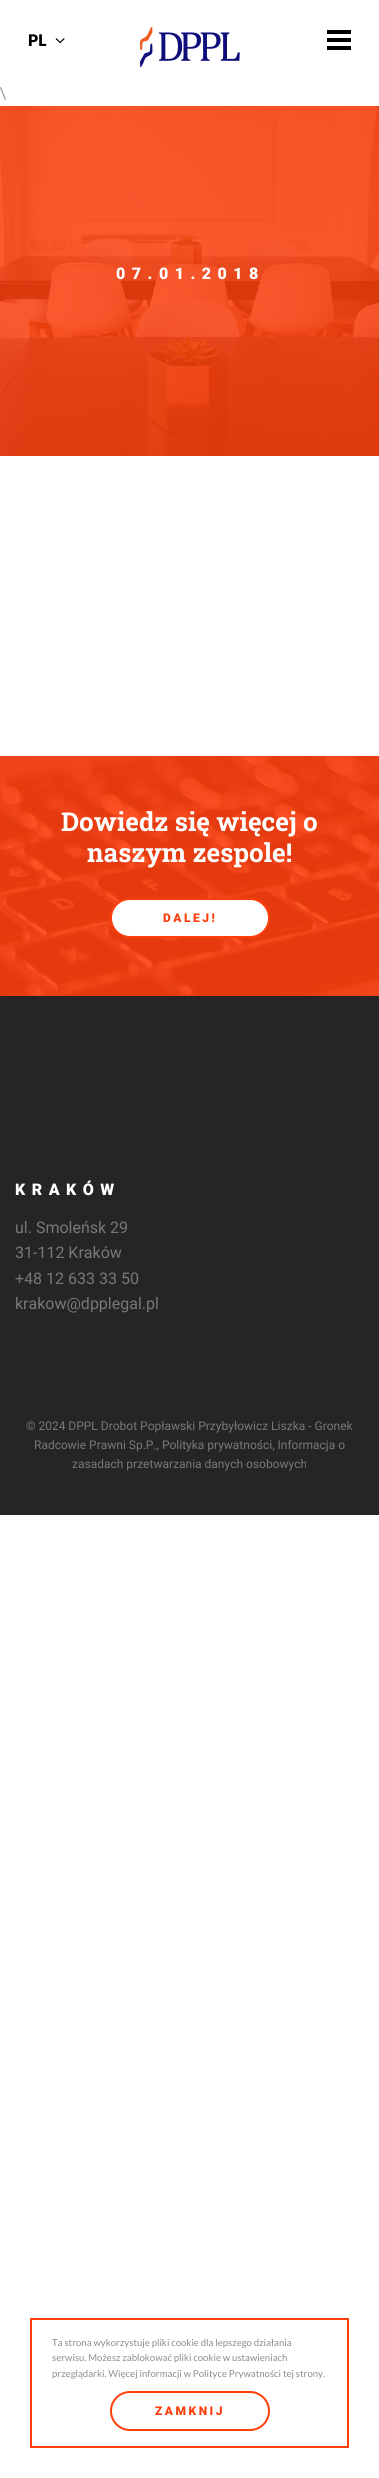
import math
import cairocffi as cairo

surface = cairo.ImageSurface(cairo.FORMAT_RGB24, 379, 2478)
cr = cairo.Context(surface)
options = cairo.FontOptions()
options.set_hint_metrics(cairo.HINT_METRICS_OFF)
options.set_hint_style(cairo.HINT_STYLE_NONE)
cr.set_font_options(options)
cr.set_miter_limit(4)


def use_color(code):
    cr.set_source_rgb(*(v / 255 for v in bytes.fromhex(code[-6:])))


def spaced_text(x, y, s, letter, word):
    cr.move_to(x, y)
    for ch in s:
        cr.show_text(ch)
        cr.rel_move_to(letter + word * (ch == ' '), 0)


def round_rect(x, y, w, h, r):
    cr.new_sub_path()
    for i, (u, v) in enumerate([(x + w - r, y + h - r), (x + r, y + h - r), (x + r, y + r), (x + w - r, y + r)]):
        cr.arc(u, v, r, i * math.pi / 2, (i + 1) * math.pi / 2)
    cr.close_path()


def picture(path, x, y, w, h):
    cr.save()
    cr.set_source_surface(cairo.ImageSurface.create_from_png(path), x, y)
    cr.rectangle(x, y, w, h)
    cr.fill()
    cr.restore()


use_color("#ffffff")
cr.paint()
cr.select_font_face("Lato Black")
cr.set_font_size(16)
use_color("#000000")
cr.move_to(28, 46)
cr.show_text("PL")
picture("img1.png", 55, 38, 10, 6)
picture("img2.png", 140, 26, 100, 41)
cr.rectangle(327, 30, 24, 4)
cr.fill()
cr.rectangle(327, 38, 24, 4)
cr.fill()
cr.rectangle(327, 46, 24, 4)
cr.fill()
cr.select_font_face("Lato")
use_color("#8c8c8c")
cr.move_to(0, 99)
cr.show_text("\\")
picture("img3.png", 0, 106, 379, 350)
cr.select_font_face("Roboto Black")
use_color("#ffffff")
spaced_text(116, 279, "07.01.2018", 6.5, 0)
picture("img4.png", 0, 756, 379, 240)
cr.select_font_face("Roboto Slab", cairo.FONT_SLANT_NORMAL, cairo.FONT_WEIGHT_BOLD)
cr.set_font_size(26)
cr.move_to(61, 831)
cr.show_text("Dowiedz się więcej o")
cr.move_to(87, 862)
cr.show_text("naszym zespole!")
round_rect(111, 899, 158, 38, 19)
cr.fill_preserve()
use_color("#fd3f0c")
cr.stroke()
cr.select_font_face("Roboto Black")
cr.set_font_size(12)
spaced_text(163, 922, "DALEJ!", 2.5, 0)
use_color("#252525")
cr.rectangle(0, 996, 379, 519)
cr.fill()
cr.set_font_size(16)
use_color("#ffffff")
spaced_text(15, 1195, "KRAKÓW", 6.5, 0)
cr.select_font_face("Roboto")
use_color("#787878")
cr.move_to(15, 1233)
cr.show_text("ul. Smoleńsk 29")
cr.move_to(15, 1258)
cr.show_text("31-112 Kraków")
cr.move_to(15, 1284)
cr.show_text("+48 12 633 33 50")
cr.move_to(15, 1309)
cr.show_text("krakow@dpplegal.pl")
cr.set_font_size(12)
cr.move_to(26, 1430)
cr.show_text("© 2024 DPPL Drobot Popławski Przybyłowicz Liszka - Gronek")
cr.move_to(34, 1449)
cr.show_text("Radcowie Prawni Sp.P., Polityka prywatności, Informacja o")
cr.move_to(72, 1468)
cr.show_text("zasadach przetwarzania danych osobowych")
cr.rectangle(31, 2319, 317, 128)
use_color("#fd3f0c")
cr.stroke()
cr.select_font_face("Lato")
cr.set_font_size(9.6)
use_color("#8c8c8c")
cr.move_to(52, 2346)
cr.show_text("Ta strona wykorzystuje pliki cookie dla lepszego działania")
cr.move_to(52, 2361)
cr.show_text("serwisu. Możesz zablokować pliki cookie w ustawieniach")
cr.move_to(52, 2377)
cr.show_text("przeglądarki. Więcej informacji w Polityce Prywatności tej strony.")
round_rect(111, 2392, 158, 38, 19)
use_color("#fd3f0c")
cr.stroke()
cr.select_font_face("Roboto Black")
cr.set_font_size(12)
spaced_text(155, 2415, "ZAMKNIJ", 2.5, 0)
surface.write_to_png("result.png")
